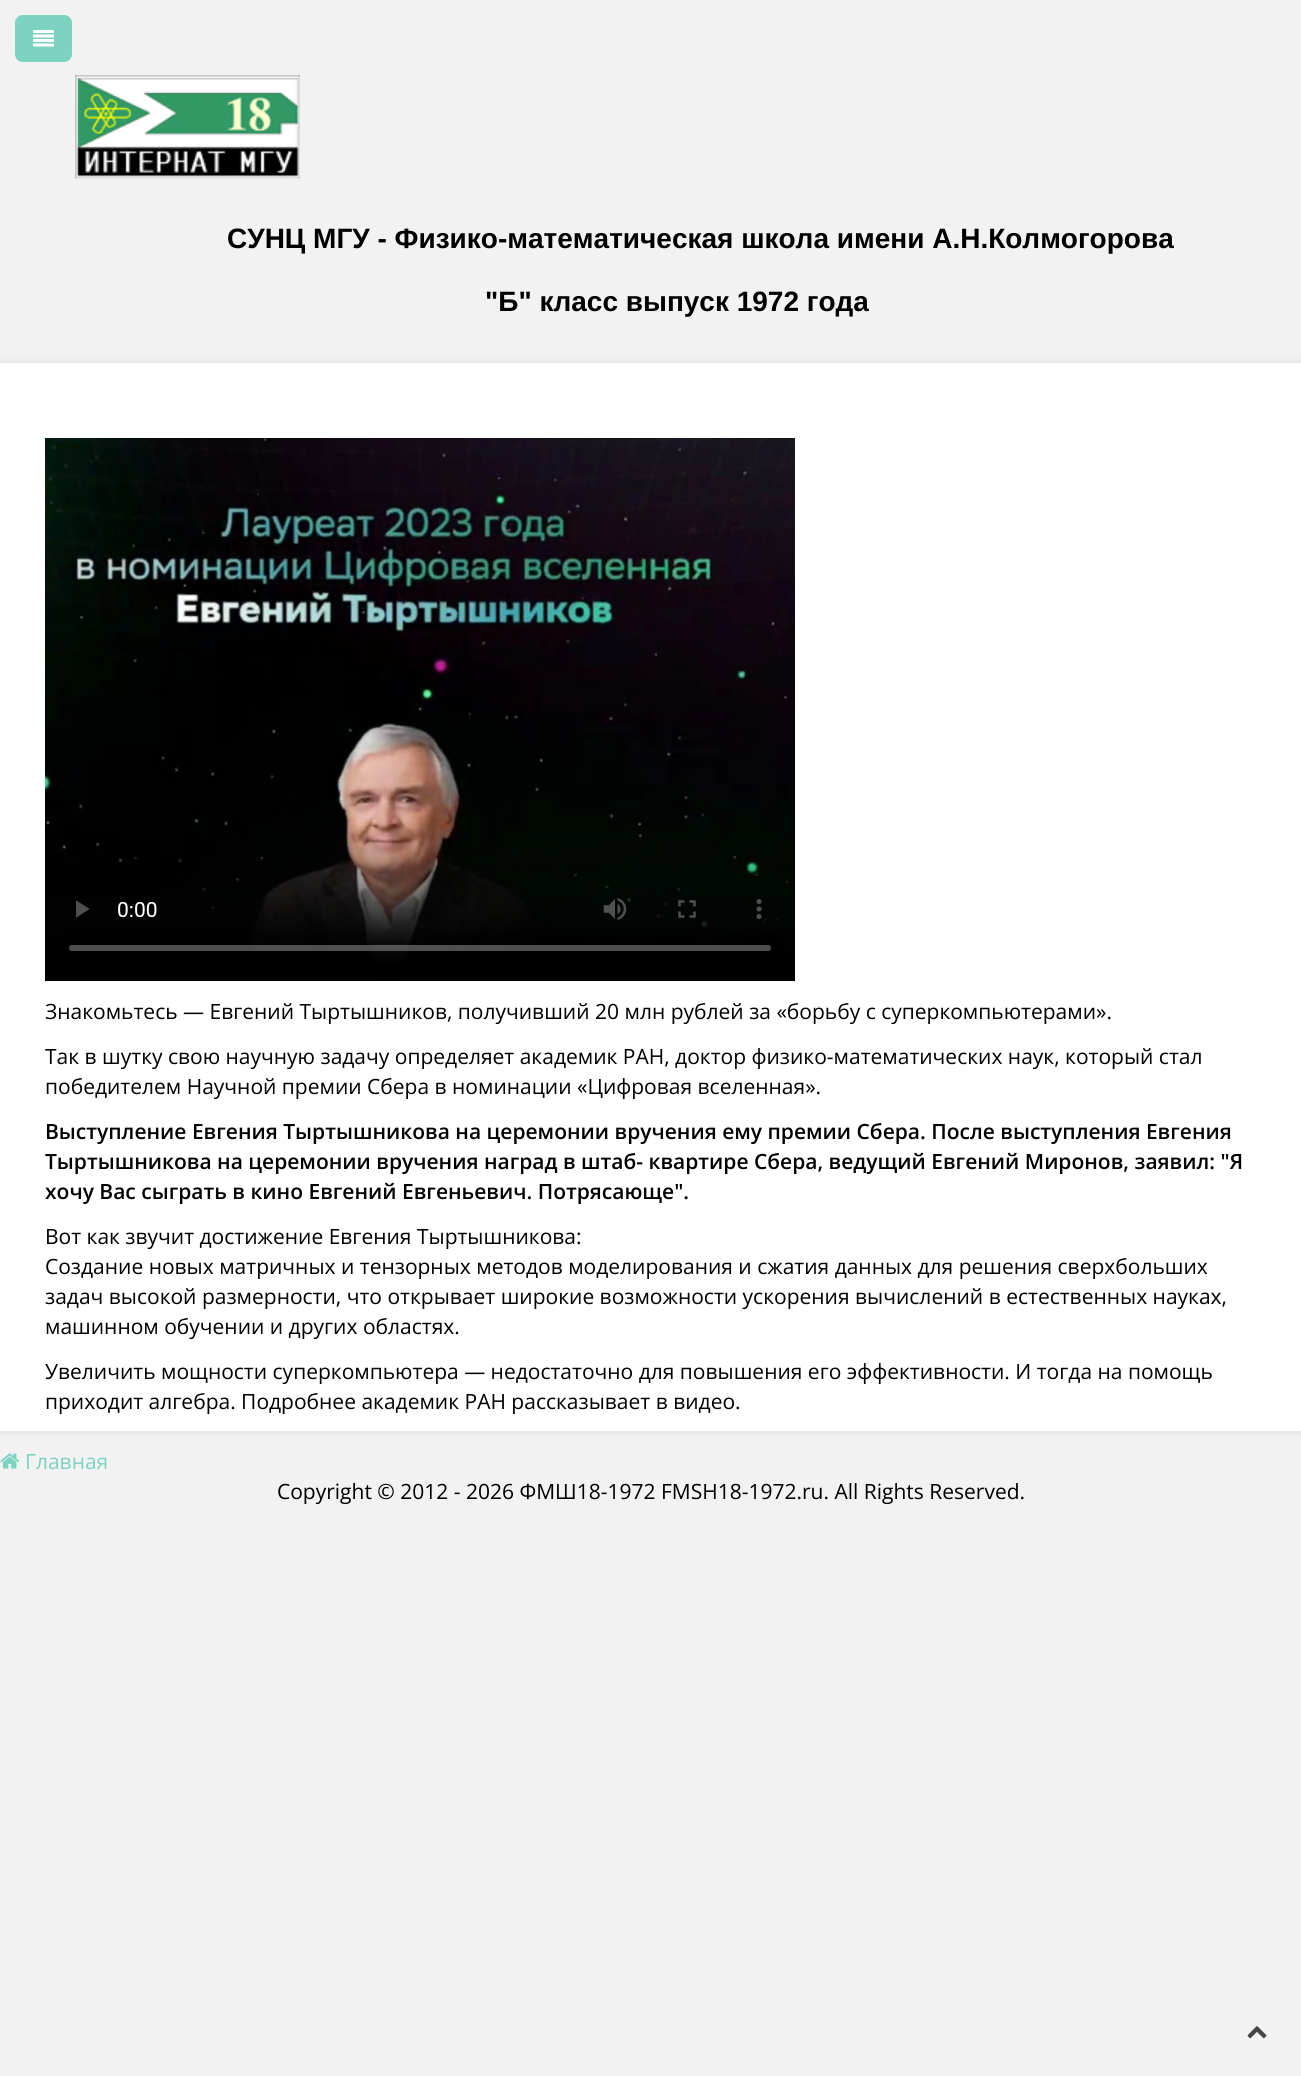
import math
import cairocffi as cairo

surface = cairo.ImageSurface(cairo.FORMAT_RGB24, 1301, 2076)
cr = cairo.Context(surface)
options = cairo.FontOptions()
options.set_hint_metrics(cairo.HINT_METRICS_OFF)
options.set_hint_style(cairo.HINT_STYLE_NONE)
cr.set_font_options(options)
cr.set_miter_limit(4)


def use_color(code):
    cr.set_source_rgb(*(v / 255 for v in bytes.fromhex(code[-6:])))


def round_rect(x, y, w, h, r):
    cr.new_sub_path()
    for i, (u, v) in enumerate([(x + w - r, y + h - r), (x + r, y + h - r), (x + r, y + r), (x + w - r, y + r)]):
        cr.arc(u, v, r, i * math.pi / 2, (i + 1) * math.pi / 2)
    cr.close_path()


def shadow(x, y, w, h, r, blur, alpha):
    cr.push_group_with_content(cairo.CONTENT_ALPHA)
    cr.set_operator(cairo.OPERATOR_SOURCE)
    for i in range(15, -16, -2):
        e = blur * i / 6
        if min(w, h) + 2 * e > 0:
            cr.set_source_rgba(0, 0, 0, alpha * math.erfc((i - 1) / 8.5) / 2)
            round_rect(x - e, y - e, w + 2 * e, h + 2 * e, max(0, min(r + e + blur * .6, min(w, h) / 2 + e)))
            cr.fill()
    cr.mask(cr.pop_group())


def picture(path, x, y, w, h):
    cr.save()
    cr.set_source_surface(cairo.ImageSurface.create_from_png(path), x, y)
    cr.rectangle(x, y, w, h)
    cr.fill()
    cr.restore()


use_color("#f2f2f2")
cr.paint()
use_color("#7cd3c0")
round_rect(15, 15, 57, 47, 8)
cr.fill()
picture("img1.png", 33, 30, 21, 17)
picture("img2.png", 75, 75, 225, 104)
cr.select_font_face("Liberation Sans", cairo.FONT_SLANT_NORMAL, cairo.FONT_WEIGHT_BOLD)
cr.set_font_size(28)
use_color("#000000")
cr.move_to(227, 248)
cr.show_text("СУНЦ МГУ - Физико-математическая школа имени А.Н.Колмогорова")
cr.move_to(485, 311)
cr.show_text("\"Б\" класс выпуск 1972 года")
use_color("#cccccc")
shadow(0, 363, 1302, 1068, 0, 4, 0.7)
use_color("#ffffff")
cr.rectangle(0, 363, 1301, 1068)
cr.fill()
picture("img3.png", 45, 438, 750, 543)
cr.select_font_face("Open Sans")
cr.set_font_size(21)
use_color("#000000")
cr.move_to(45, 1019)
cr.show_text("Знакомьтесь — Евгений Тыртышников, получивший 20 млн рублей за «борьбу с суперкомпьютерами».")
cr.move_to(45, 1064)
cr.show_text("Так в шутку свою научную задачу определяет академик РАН, доктор физико-математических наук, который стал")
cr.move_to(45, 1094)
cr.show_text("победителем Научной премии Сбера в номинации «Цифровая вселенная».")
cr.select_font_face("Open Sans SemiBold")
cr.move_to(45, 1139)
cr.show_text("Выступление Евгения Тыртышникова на церемонии вручения ему премии Сбера. После выступления Евгения")
cr.move_to(45, 1169)
cr.show_text("Тыртышникова на церемонии вручения наград в штаб- квартире Сбера, ведущий Евгений Миронов, заявил: \"Я")
cr.move_to(45, 1199)
cr.show_text("хочу Вас сыграть в кино Евгений Евгеньевич. Потрясающе\".")
cr.select_font_face("Open Sans")
cr.move_to(45, 1244)
cr.show_text("Вот как звучит достижение Евгения Тыртышникова:")
cr.move_to(45, 1274)
cr.show_text("Создание новых матричных и тензорных методов моделирования и сжатия данных для решения сверхбольших")
cr.move_to(45, 1304)
cr.show_text("задач высокой размерности, что открывает широкие возможности ускорения вычислений в естественных науках,")
cr.move_to(45, 1334)
cr.show_text("машинном обучении и других областях.")
cr.move_to(45, 1379)
cr.show_text("Увеличить мощности суперкомпьютера — недостаточно для повышения его эффективности. И тогда на помощь")
cr.move_to(45, 1409)
cr.show_text("приходит алгебра. Подробнее академик РАН рассказывает в видео.")
picture("img4.png", 0, 1453, 20, 16)
use_color("#7cd3c0")
cr.move_to(25, 1469)
cr.show_text("Главная")
use_color("#000000")
cr.move_to(277, 1499)
cr.show_text("Copyright © 2012 - 2026 ФMШ18-1972 FMSH18-1972.ru. All Rights Reserved.")
picture("img5.png", 1247, 2026, 20, 13)
surface.write_to_png("result.png")
